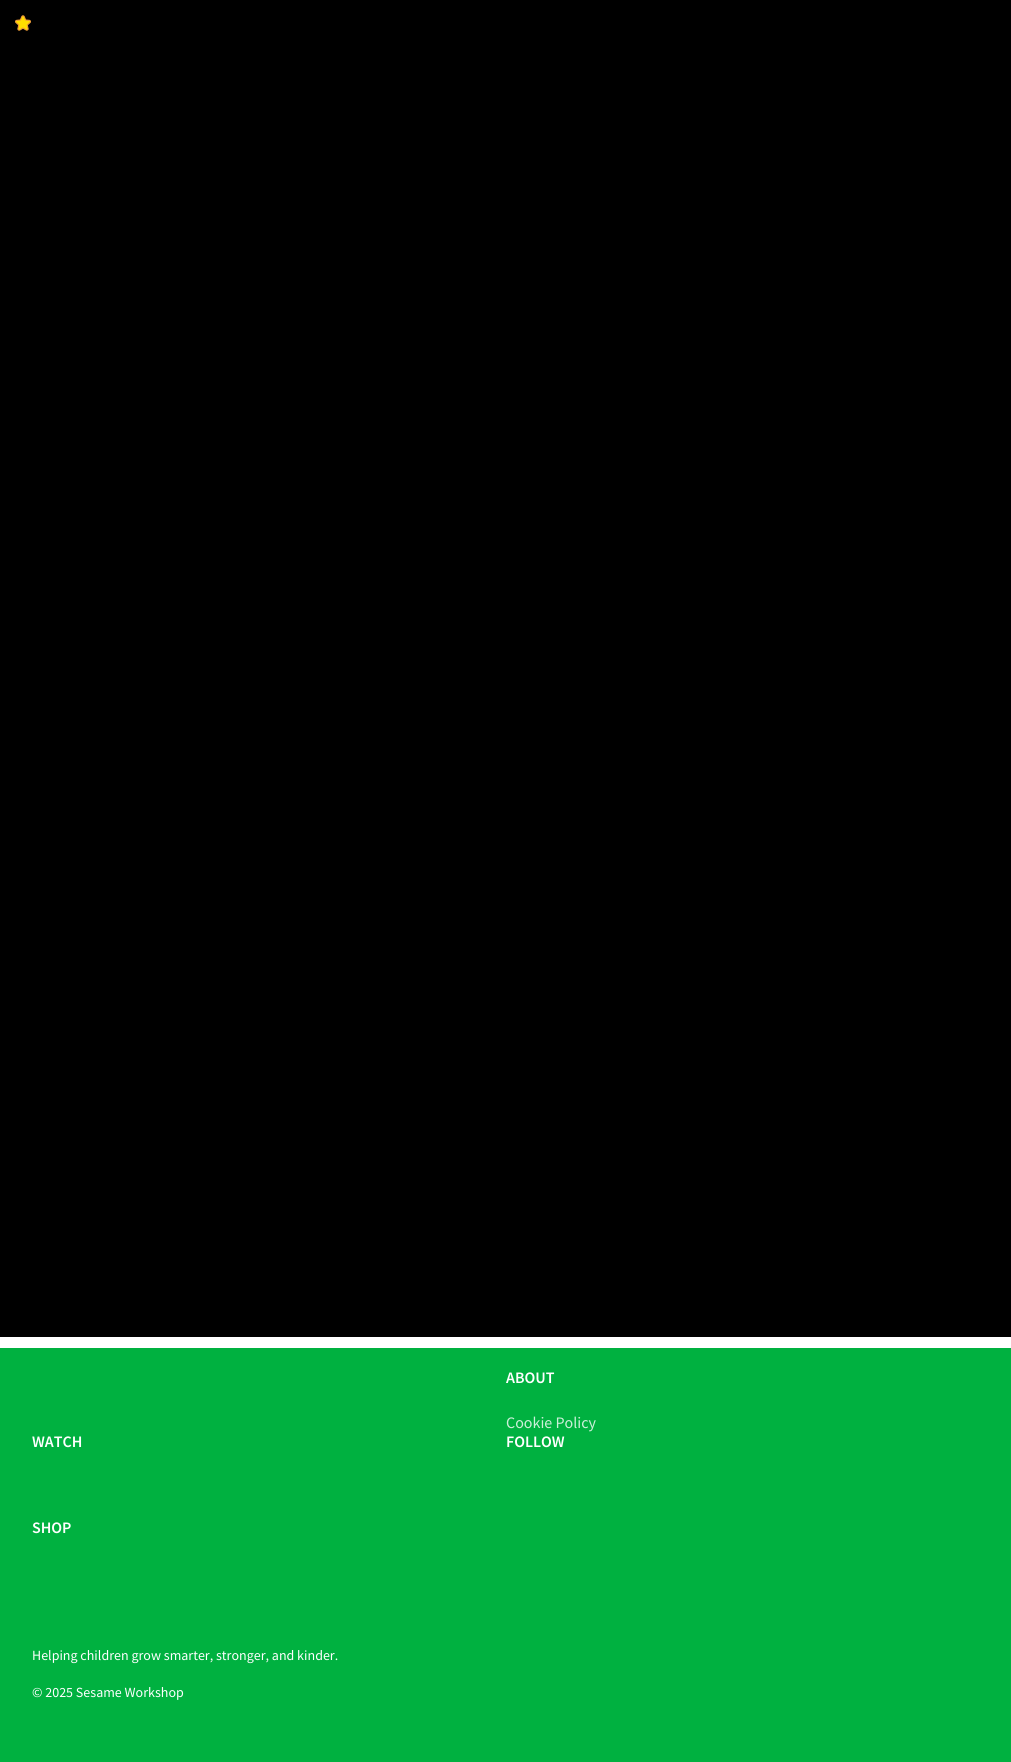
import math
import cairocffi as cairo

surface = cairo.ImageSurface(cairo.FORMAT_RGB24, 1011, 1762)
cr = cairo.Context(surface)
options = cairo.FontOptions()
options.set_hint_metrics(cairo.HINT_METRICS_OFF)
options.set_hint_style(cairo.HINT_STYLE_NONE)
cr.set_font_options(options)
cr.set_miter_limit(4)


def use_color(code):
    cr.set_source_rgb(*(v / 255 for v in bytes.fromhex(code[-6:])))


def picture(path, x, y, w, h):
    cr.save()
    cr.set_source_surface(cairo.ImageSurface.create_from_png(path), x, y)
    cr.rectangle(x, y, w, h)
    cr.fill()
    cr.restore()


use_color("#ffffff")
cr.paint()
use_color("#000000")
cr.rectangle(0, 0, 1011, 1337)
cr.fill()
picture("img1.png", 15, 15, 16, 16)
use_color("#00b140")
cr.rectangle(0, 1348, 1011, 414)
cr.fill()
cr.select_font_face("Source Sans Pro SemiBold")
cr.set_font_size(16)
use_color("#ffffff")
cr.move_to(506, 1383)
cr.show_text("ABOUT")
cr.select_font_face("Source Sans Pro")
use_color("#ccefd9")
cr.move_to(506, 1428)
cr.show_text("Cookie Policy")
cr.select_font_face("Source Sans Pro SemiBold")
use_color("#ffffff")
cr.move_to(32, 1447)
cr.show_text("WATCH")
cr.move_to(506, 1447)
cr.show_text("FOLLOW")
cr.move_to(32, 1533)
cr.show_text("SHOP")
cr.select_font_face("Source Sans Pro")
cr.set_font_size(14)
cr.move_to(32, 1660)
cr.show_text("Helping children grow smarter, stronger, and kinder.")
cr.move_to(32, 1697)
cr.show_text("© 2025 Sesame Workshop")
surface.write_to_png("result.png")
